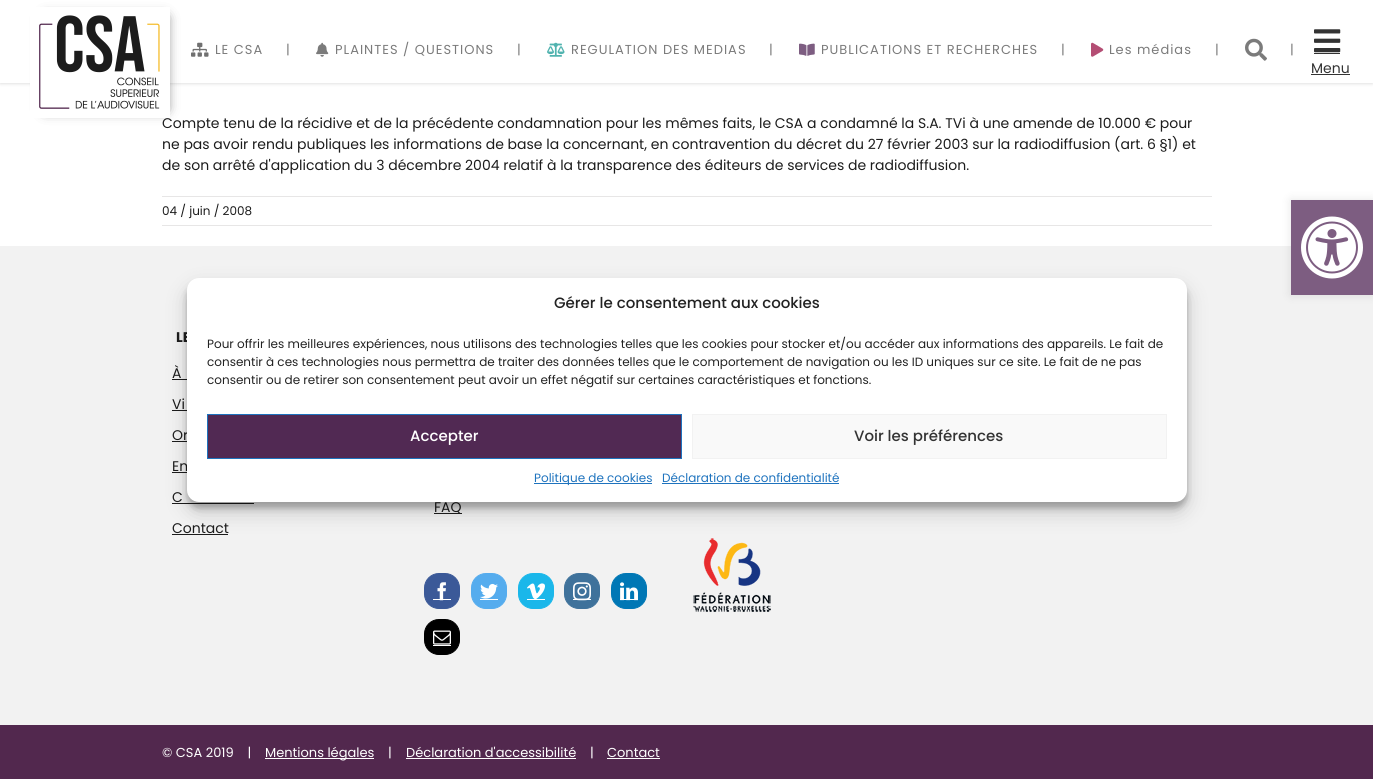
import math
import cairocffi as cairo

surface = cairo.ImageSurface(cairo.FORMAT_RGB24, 1373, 779)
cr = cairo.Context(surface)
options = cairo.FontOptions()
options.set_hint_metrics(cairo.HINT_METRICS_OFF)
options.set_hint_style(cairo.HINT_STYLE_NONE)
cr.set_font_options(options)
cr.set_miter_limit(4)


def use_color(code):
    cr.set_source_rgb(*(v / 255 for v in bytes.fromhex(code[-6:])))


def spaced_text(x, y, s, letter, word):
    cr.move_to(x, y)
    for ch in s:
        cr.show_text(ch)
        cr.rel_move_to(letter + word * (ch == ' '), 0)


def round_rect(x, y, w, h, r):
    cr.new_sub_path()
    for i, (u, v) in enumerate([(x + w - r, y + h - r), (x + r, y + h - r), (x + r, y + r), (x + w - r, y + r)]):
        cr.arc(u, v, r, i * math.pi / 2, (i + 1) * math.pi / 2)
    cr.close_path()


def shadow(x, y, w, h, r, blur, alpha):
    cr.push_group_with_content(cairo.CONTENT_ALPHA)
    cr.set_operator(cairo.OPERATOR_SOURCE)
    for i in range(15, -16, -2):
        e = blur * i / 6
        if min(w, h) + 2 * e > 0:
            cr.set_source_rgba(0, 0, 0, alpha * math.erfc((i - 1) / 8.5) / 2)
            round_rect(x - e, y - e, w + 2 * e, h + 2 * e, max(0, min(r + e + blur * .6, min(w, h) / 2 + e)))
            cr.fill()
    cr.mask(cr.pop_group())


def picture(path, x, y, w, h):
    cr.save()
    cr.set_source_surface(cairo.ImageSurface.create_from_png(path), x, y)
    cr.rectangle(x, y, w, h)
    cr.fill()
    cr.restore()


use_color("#ffffff")
cr.paint()
use_color("#000000")
shadow(0, 1, 1373, 83, 0, 1.5, 0.12)
use_color("#ffffff")
cr.rectangle(0, 0, 1373, 83)
cr.fill()
use_color("#333333")
shadow(45, 18, 120, 91, 0, 6.5, 1)
cr.select_font_face("Poppins")
cr.set_font_size(14)
use_color("#1c1c1c")
cr.move_to(162, 128)
cr.show_text("Compte tenu de la récidive et de la précédente condamnation pour les mêmes faits, le CSA a condamné la S.A. TVi à une amende de 10.000 € pour")
use_color("#ffffff")
cr.rectangle(30, 7, 140, 111)
cr.fill()
picture("img1.png", 39, 15, 121, 94)
picture("img2.png", 191, 42, 18, 15)
cr.set_font_size(13)
use_color("#7b7b7b")
spaced_text(215, 54, "LE CSA", 1, 0)
spaced_text(286, 54, "|", 1, 0)
picture("img3.png", 316, 42, 13, 15)
spaced_text(335, 54, "PLAINTES / QUESTIONS", 1, 0)
spaced_text(517, 54, "|", 1, 0)
picture("img4.png", 547, 42, 18, 15)
spaced_text(571, 54, "REGULATION DES MEDIAS", 1, 0)
spaced_text(769, 54, "|", 1, 0)
picture("img5.png", 799, 43, 16, 13)
spaced_text(821, 54, "PUBLICATIONS ET RECHERCHES", 1, 0)
spaced_text(1061, 54, "|", 1, 0)
picture("img6.png", 1091, 42, 13, 15)
spaced_text(1109, 54, "Les médias", 1, 0)
spaced_text(1215, 54, "|", 1, 0)
picture("img7.png", 1245, 38, 22, 23)
spaced_text(1290, 54, "|", 1, 0)
picture("img8.png", 1314, 29, 27, 24)
use_color("#333333")
cr.rectangle(1314, 53, 26, 1)
cr.fill()
cr.set_font_size(14)
cr.move_to(1311, 73)
cr.show_text("Menu")
cr.rectangle(1311, 74, 39, 1)
cr.fill()
use_color("#1c1c1c")
cr.move_to(162, 149)
cr.show_text("ne pas avoir rendu publiques les informations de base la concernant, en contravention du décret du 27 février 2003 sur la radiodiffusion (art. 6 §1) et")
cr.move_to(162, 170)
cr.show_text("de son arrêté d'application du 3 décembre 2004 relatif à la transparence des éditeurs de services de radiodiffusion.")
use_color("#e7e6e6")
cr.rectangle(162, 196, 1050, 1)
cr.fill()
cr.rectangle(162, 225, 1050, 1)
cr.fill()
cr.set_font_size(12)
use_color("#1c1c1c")
cr.move_to(162, 215)
cr.show_text("04 / juin / 2008")
use_color("#f2f2f2")
cr.rectangle(0, 246, 1373, 479)
cr.fill()
cr.select_font_face("Poppins", cairo.FONT_SLANT_NORMAL, cairo.FONT_WEIGHT_BOLD)
cr.set_font_size(14)
use_color("#1c1c1c")
cr.move_to(176, 342)
cr.show_text("LE")
cr.select_font_face("Poppins")
cr.move_to(172, 378)
cr.show_text("À")
cr.rectangle(172, 379, 15, 1)
cr.fill()
cr.move_to(172, 409)
cr.show_text("Vi")
cr.rectangle(172, 410, 15, 1)
cr.fill()
cr.move_to(172, 440)
cr.show_text("Or")
cr.rectangle(172, 441, 15, 1)
cr.fill()
cr.move_to(172, 471)
cr.show_text("Em")
cr.rectangle(172, 472, 15, 1)
cr.fill()
cr.move_to(172, 502)
cr.show_text("C")
cr.rectangle(172, 503, 82, 1)
cr.fill()
cr.move_to(172, 533)
cr.show_text("Contact")
cr.rectangle(172, 534, 56, 1)
cr.fill()
cr.rectangle(434, 513, 28, 1)
cr.fill()
cr.move_to(434, 512)
cr.show_text("FAQ")
use_color("#3b5998")
round_rect(424.5, 573.5, 35, 35, 14.5)
cr.fill_preserve()
cr.set_line_width(1)
cr.stroke()
use_color("#ffffff")
cr.rectangle(433, 599, 18, 1)
cr.fill()
picture("img9.png", 437, 582, 9, 19)
use_color("#55acee")
round_rect(471.5, 573.5, 35, 35, 14.5)
cr.fill_preserve()
cr.stroke()
picture("img10.png", 480, 583, 18, 16)
use_color("#ffffff")
cr.rectangle(480, 599, 18, 1)
cr.fill()
use_color("#1ab7ea")
round_rect(518.5, 573.5, 35, 35, 14.5)
cr.fill_preserve()
cr.stroke()
picture("img11.png", 527, 583, 18, 16)
use_color("#ffffff")
cr.rectangle(527, 599, 18, 1)
cr.fill()
use_color("#3f729b")
round_rect(564.5, 573.5, 35, 35, 14.5)
cr.fill_preserve()
cr.stroke()
use_color("#ffffff")
cr.rectangle(573, 599, 18, 1)
cr.fill()
picture("img12.png", 573, 582, 18, 19)
use_color("#0077b5")
round_rect(611.5, 573.5, 35, 35, 14.5)
cr.fill_preserve()
cr.stroke()
use_color("#ffffff")
cr.rectangle(620, 599, 18, 1)
cr.fill()
picture("img13.png", 620, 582, 18, 19)
use_color("#000000")
round_rect(424.5, 619.5, 35, 35, 14.5)
cr.fill_preserve()
cr.stroke()
picture("img14.png", 433, 630, 18, 15)
use_color("#ffffff")
cr.rectangle(433, 645, 18, 1)
cr.fill()
picture("img15.png", 693, 538, 78, 74)
use_color("#52284e")
cr.rectangle(0, 725, 1373, 54)
cr.fill()
cr.set_font_size(13)
use_color("#ffffff")
cr.move_to(162, 757)
cr.show_text("© CSA 2019    |")
cr.rectangle(265, 758, 109, 1)
cr.fill()
cr.move_to(265, 757)
cr.show_text("Mentions légales")
cr.move_to(388, 757)
cr.show_text("|")
cr.move_to(406, 757)
cr.show_text("Déclaration d'accessibilité")
cr.rectangle(406, 758, 170, 1)
cr.fill()
cr.move_to(590, 757)
cr.show_text("|")
cr.move_to(607, 757)
cr.show_text("Contact")
cr.rectangle(607, 758, 53, 1)
cr.fill()
use_color("#000000")
shadow(1291, 200, 82, 95, 0, 5, 0.1)
use_color("#7d5d81")
cr.rectangle(1291, 200, 82, 95)
cr.fill()
picture("img16.png", 1301, 216, 62, 63)
use_color("#000000")
shadow(187, 284, 1000, 224, 12, 3, 0.23)
shadow(187, 288, 1000, 224, 12, 10, 0.19)
use_color("#ffffff")
round_rect(187, 278, 1000, 224, 12)
cr.fill()
cr.select_font_face("Poppins Medium")
cr.set_font_size(15)
use_color("#222222")
cr.move_to(554, 308)
cr.show_text("Gérer le consentement aux cookies")
cr.select_font_face("Poppins")
cr.set_font_size(12)
cr.move_to(207, 348)
cr.show_text("Pour offrir les meilleures expériences, nous utilisons des technologies telles que les cookies pour stocker et/ou accéder aux informations des appareils. Le fait de")
cr.move_to(207, 366)
cr.show_text("consentir à ces technologies nous permettra de traiter des données telles que le comportement de navigation ou les ID uniques sur ce site. Le fait de ne pas")
cr.move_to(207, 384)
cr.show_text("consentir ou de retirer son consentement peut avoir un effet négatif sur certaines caractéristiques et fonctions.")
use_color("#512953")
cr.rectangle(207.5, 414.5, 474, 44)
cr.fill_preserve()
use_color("#1e73be")
cr.stroke()
cr.select_font_face("Poppins Medium")
cr.set_font_size(15)
use_color("#ffffff")
cr.move_to(410, 441)
cr.show_text("Accepter")
use_color("#f9f9f9")
cr.rectangle(692.5, 414.5, 474, 44)
cr.fill_preserve()
use_color("#f2f2f2")
cr.stroke()
use_color("#333333")
cr.move_to(854, 441)
cr.show_text("Voir les préférences")
use_color("#1e73be")
cr.rectangle(534, 483, 118, 1)
cr.fill()
cr.select_font_face("Poppins")
cr.set_font_size(12)
cr.move_to(534, 482)
cr.show_text("Politique de cookies")
cr.move_to(662, 482)
cr.show_text("Déclaration de confidentialité")
cr.rectangle(662, 483, 177, 1)
cr.fill()
surface.write_to_png("result.png")
